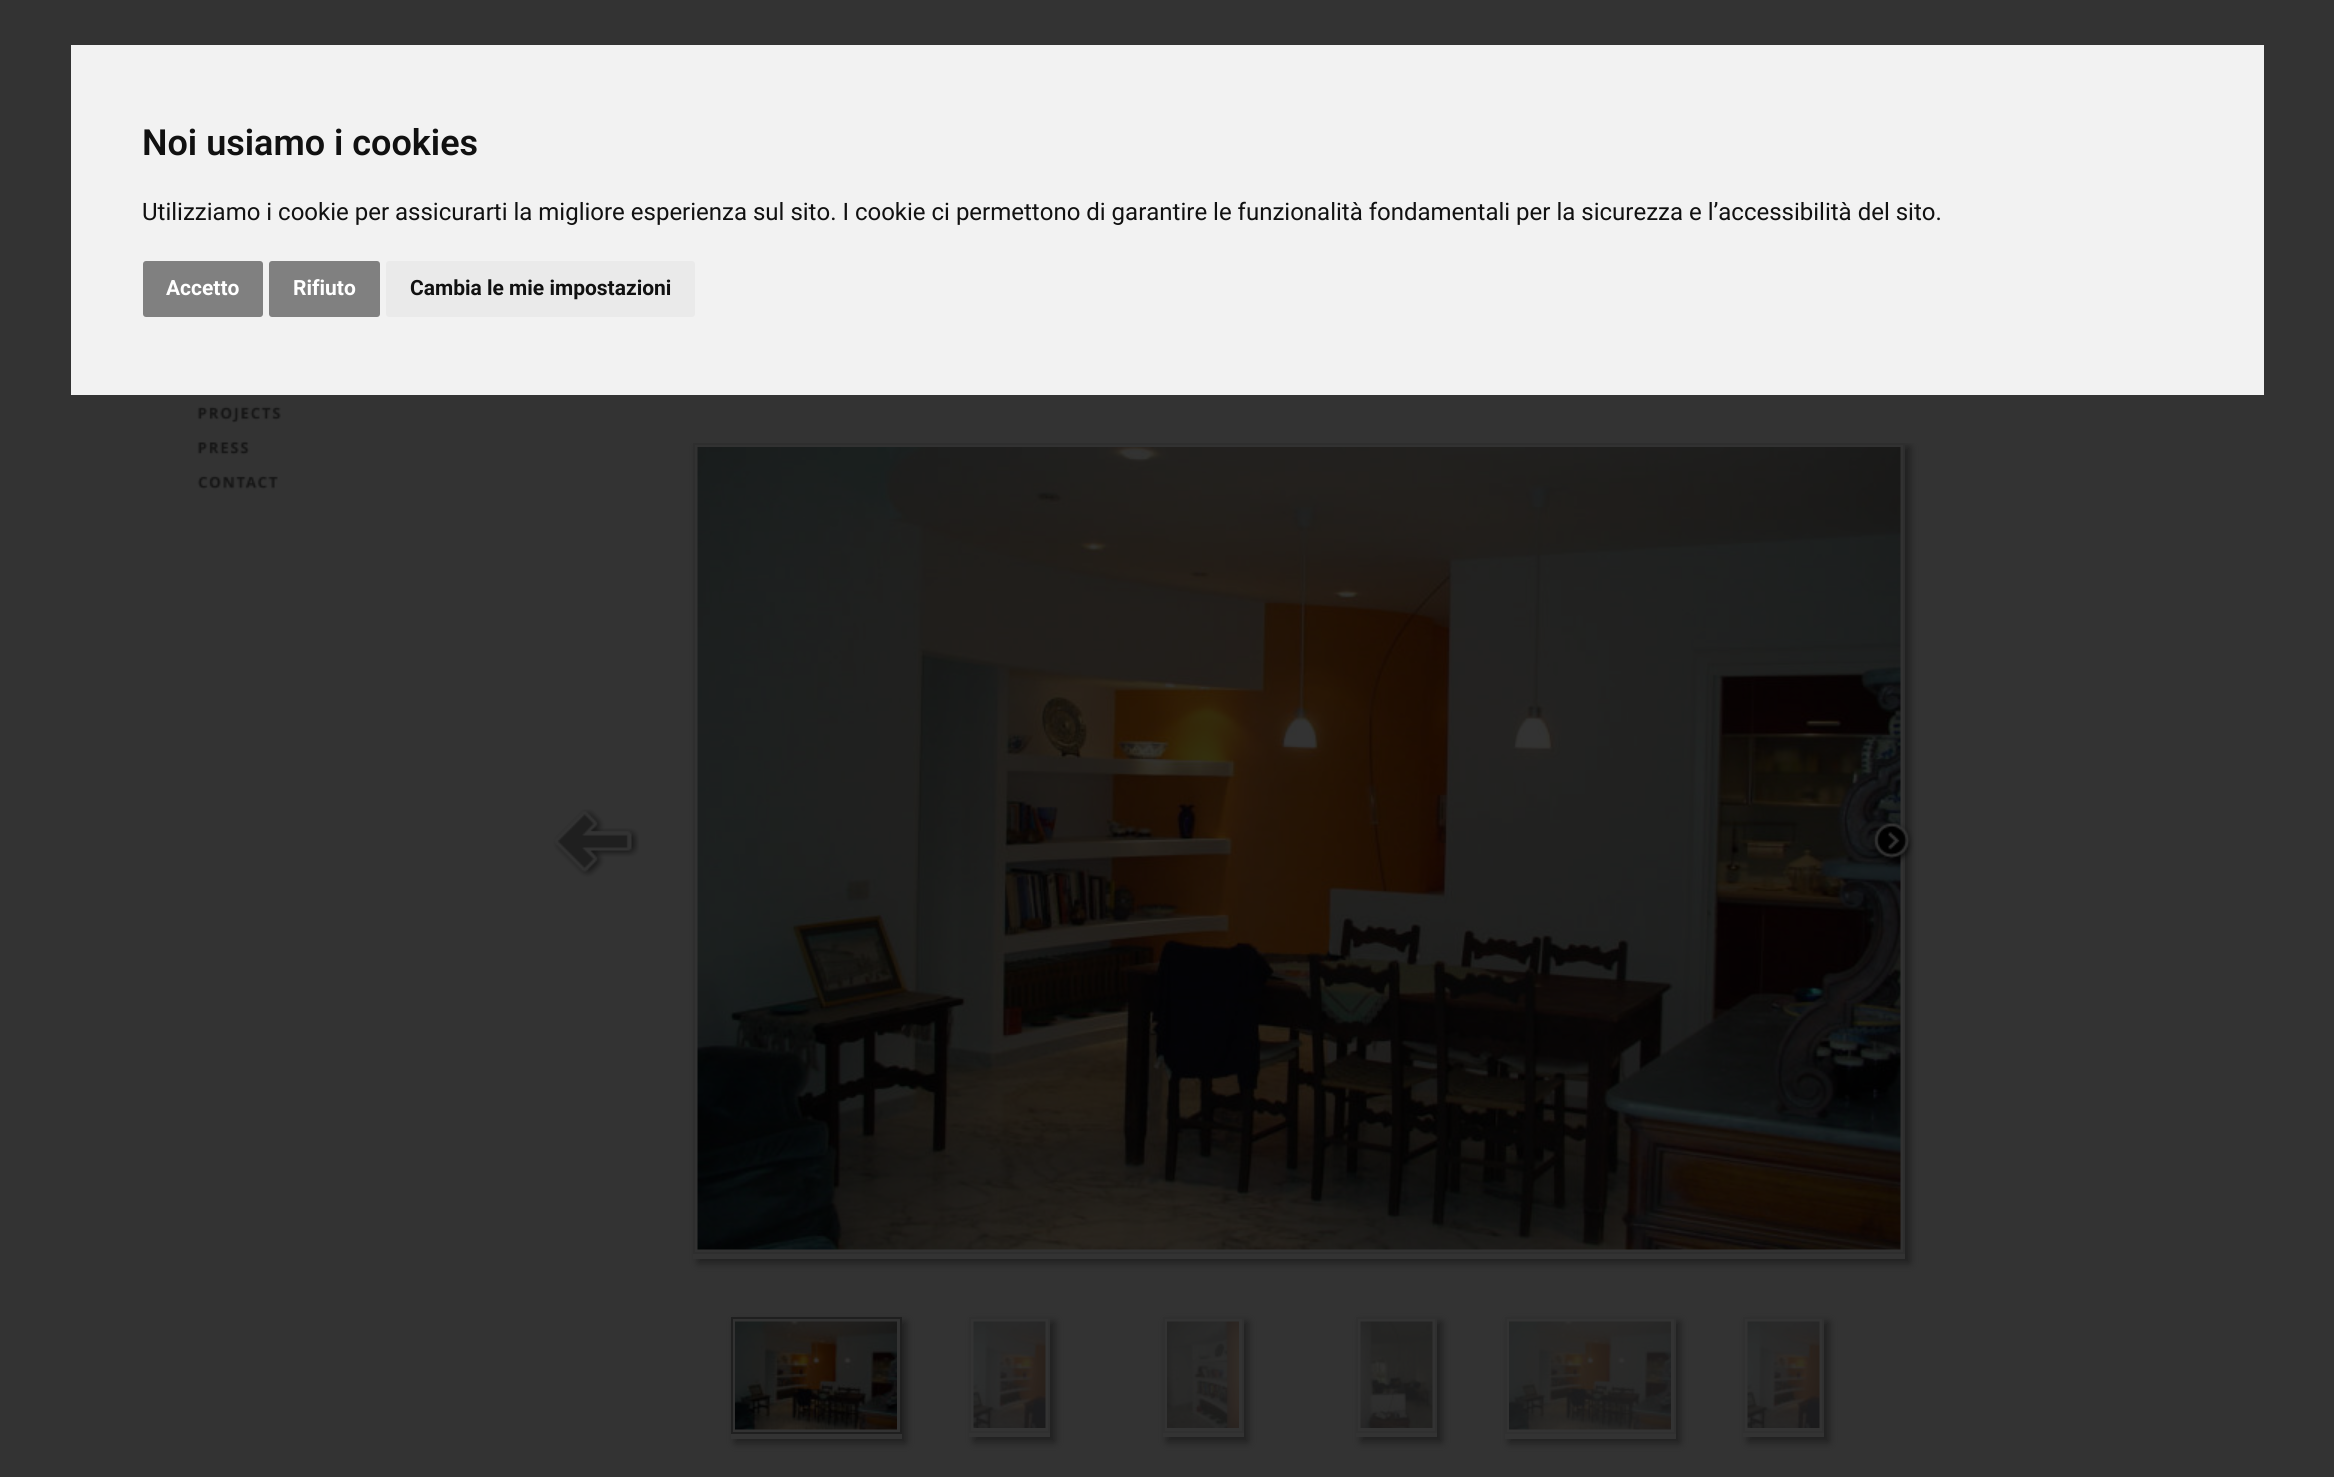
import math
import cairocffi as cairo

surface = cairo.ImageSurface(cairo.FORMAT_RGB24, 2334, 1477)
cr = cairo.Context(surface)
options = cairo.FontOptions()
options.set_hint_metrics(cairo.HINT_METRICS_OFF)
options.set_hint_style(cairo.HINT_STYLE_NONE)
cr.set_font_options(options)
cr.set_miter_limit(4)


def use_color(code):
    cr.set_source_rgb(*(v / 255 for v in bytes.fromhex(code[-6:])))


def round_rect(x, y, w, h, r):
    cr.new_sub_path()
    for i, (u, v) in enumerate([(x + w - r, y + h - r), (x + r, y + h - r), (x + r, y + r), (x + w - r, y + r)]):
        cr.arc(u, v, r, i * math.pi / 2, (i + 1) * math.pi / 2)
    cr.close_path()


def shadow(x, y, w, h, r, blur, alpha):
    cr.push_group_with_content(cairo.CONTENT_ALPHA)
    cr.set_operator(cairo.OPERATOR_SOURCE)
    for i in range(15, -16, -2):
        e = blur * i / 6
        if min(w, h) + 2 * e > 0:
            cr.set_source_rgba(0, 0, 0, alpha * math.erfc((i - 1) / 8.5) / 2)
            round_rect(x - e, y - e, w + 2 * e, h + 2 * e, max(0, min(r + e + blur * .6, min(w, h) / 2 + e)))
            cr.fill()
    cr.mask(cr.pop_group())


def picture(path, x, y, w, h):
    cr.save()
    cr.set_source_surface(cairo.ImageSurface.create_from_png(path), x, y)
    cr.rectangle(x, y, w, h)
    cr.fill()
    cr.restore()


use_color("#333333")
cr.paint()
use_color("#f2f2f2")
cr.rectangle(71, 45, 2193, 350)
cr.fill()
cr.select_font_face("Roboto SemiBold")
cr.set_font_size(36)
use_color("#111111")
cr.move_to(142, 155)
cr.show_text("Noi usiamo i cookies")
cr.select_font_face("Roboto")
cr.set_font_size(24)
cr.move_to(142, 220)
cr.show_text("Utilizziamo i cookie per assicurarti la migliore esperienza sul sito. I cookie ci permettono di garantire le funzionalità fondamentali per la sicurezza e l’accessibilità del sito.")
use_color("#808080")
round_rect(143, 261, 120, 56, 3)
cr.fill()
cr.select_font_face("Roboto", cairo.FONT_SLANT_NORMAL, cairo.FONT_WEIGHT_BOLD)
cr.set_font_size(21)
use_color("#ffffff")
cr.move_to(166, 295)
cr.show_text("Accetto")
use_color("#808080")
round_rect(269, 261, 111, 56, 3)
cr.fill()
use_color("#ffffff")
cr.move_to(293, 295)
cr.show_text("Rifiuto")
use_color("#eaeaea")
round_rect(386, 261, 309, 56, 3)
cr.fill()
use_color("#111111")
cr.move_to(410, 295)
cr.show_text("Cambia le mie impostazioni")
picture("img1.png", 197, 406, 84, 17)
picture("img2.png", 197, 441, 53, 14)
picture("img3.png", 197, 475, 81, 15)
picture("img4.png", 553, 809, 86, 68)
cr.save()
cr.rectangle(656, 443, 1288, 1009)
cr.clip()
use_color("#1f1f1f")
shadow(698, 447, 1212, 816, 0, 4, 1)
cr.restore()
use_color("#333333")
cr.rectangle(693, 1254, 1212, 5)
cr.fill()
use_color("#323232")
cr.rectangle(694, 444, 1210, 809)
cr.fill_preserve()
use_color("#2e2e2e")
cr.stroke()
picture("img5.png", 697, 447, 1204, 803)
picture("img6.png", 1870, 822, 44, 41)
use_color("#1f1f1f")
shadow(735, 1322, 171, 121, 0, 4, 1)
use_color("#333333")
cr.rectangle(731, 1434, 171, 5)
cr.fill()
use_color("#323232")
cr.rectangle(732, 1318, 169, 115)
cr.fill_preserve()
use_color("#1f1f1f")
cr.stroke()
picture("img7.png", 735, 1321, 162, 109)
cr.save()
cr.set_fill_rule(cairo.FILL_RULE_EVEN_ODD)
cr.new_path()
cr.move_to(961, 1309)
cr.line_to(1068, 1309)
cr.line_to(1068, 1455)
cr.line_to(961, 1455)
cr.close_path()
cr.move_to(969, 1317)
cr.line_to(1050, 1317)
cr.line_to(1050, 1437)
cr.line_to(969, 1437)
cr.close_path()
cr.clip()
use_color("#1f1f1f")
shadow(974, 1322, 81, 120, 0, 4, 1)
cr.restore()
cr.rectangle(970, 1318, 79, 114)
use_color("#303030")
cr.stroke()
picture("img8.png", 973, 1321, 73, 107)
use_color("#1f1f1f")
shadow(1167, 1322, 81, 120, 0, 4, 1)
use_color("#333333")
cr.rectangle(1163, 1433, 81, 4)
cr.fill()
cr.rectangle(1164, 1318, 79, 114)
cr.fill_preserve()
use_color("#303030")
cr.stroke()
picture("img9.png", 1167, 1321, 72, 107)
cr.save()
cr.set_fill_rule(cairo.FILL_RULE_EVEN_ODD)
cr.new_path()
cr.move_to(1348, 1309)
cr.line_to(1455, 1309)
cr.line_to(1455, 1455)
cr.line_to(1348, 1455)
cr.close_path()
cr.move_to(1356, 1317)
cr.line_to(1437, 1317)
cr.line_to(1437, 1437)
cr.line_to(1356, 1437)
cr.close_path()
cr.clip()
use_color("#1f1f1f")
shadow(1361, 1322, 81, 120, 0, 4, 1)
cr.restore()
cr.rectangle(1357, 1318, 79, 114)
cr.stroke()
picture("img10.png", 1360, 1321, 73, 107)
use_color("#1f1f1f")
shadow(1509, 1322, 171, 121, 0, 4, 1)
use_color("#333333")
cr.rectangle(1505, 1434, 171, 5)
cr.fill()
cr.rectangle(1506, 1318, 169, 115)
cr.fill_preserve()
use_color("#303030")
cr.stroke()
picture("img11.png", 1509, 1321, 162, 109)
cr.save()
cr.set_fill_rule(cairo.FILL_RULE_EVEN_ODD)
cr.new_path()
cr.move_to(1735, 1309)
cr.line_to(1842, 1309)
cr.line_to(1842, 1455)
cr.line_to(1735, 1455)
cr.close_path()
cr.move_to(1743, 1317)
cr.line_to(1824, 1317)
cr.line_to(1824, 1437)
cr.line_to(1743, 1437)
cr.close_path()
cr.clip()
use_color("#1f1f1f")
shadow(1748, 1322, 81, 120, 0, 4, 1)
cr.restore()
cr.rectangle(1744, 1318, 79, 114)
cr.stroke()
picture("img8.png", 1747, 1321, 73, 107)
surface.write_to_png("result.png")
